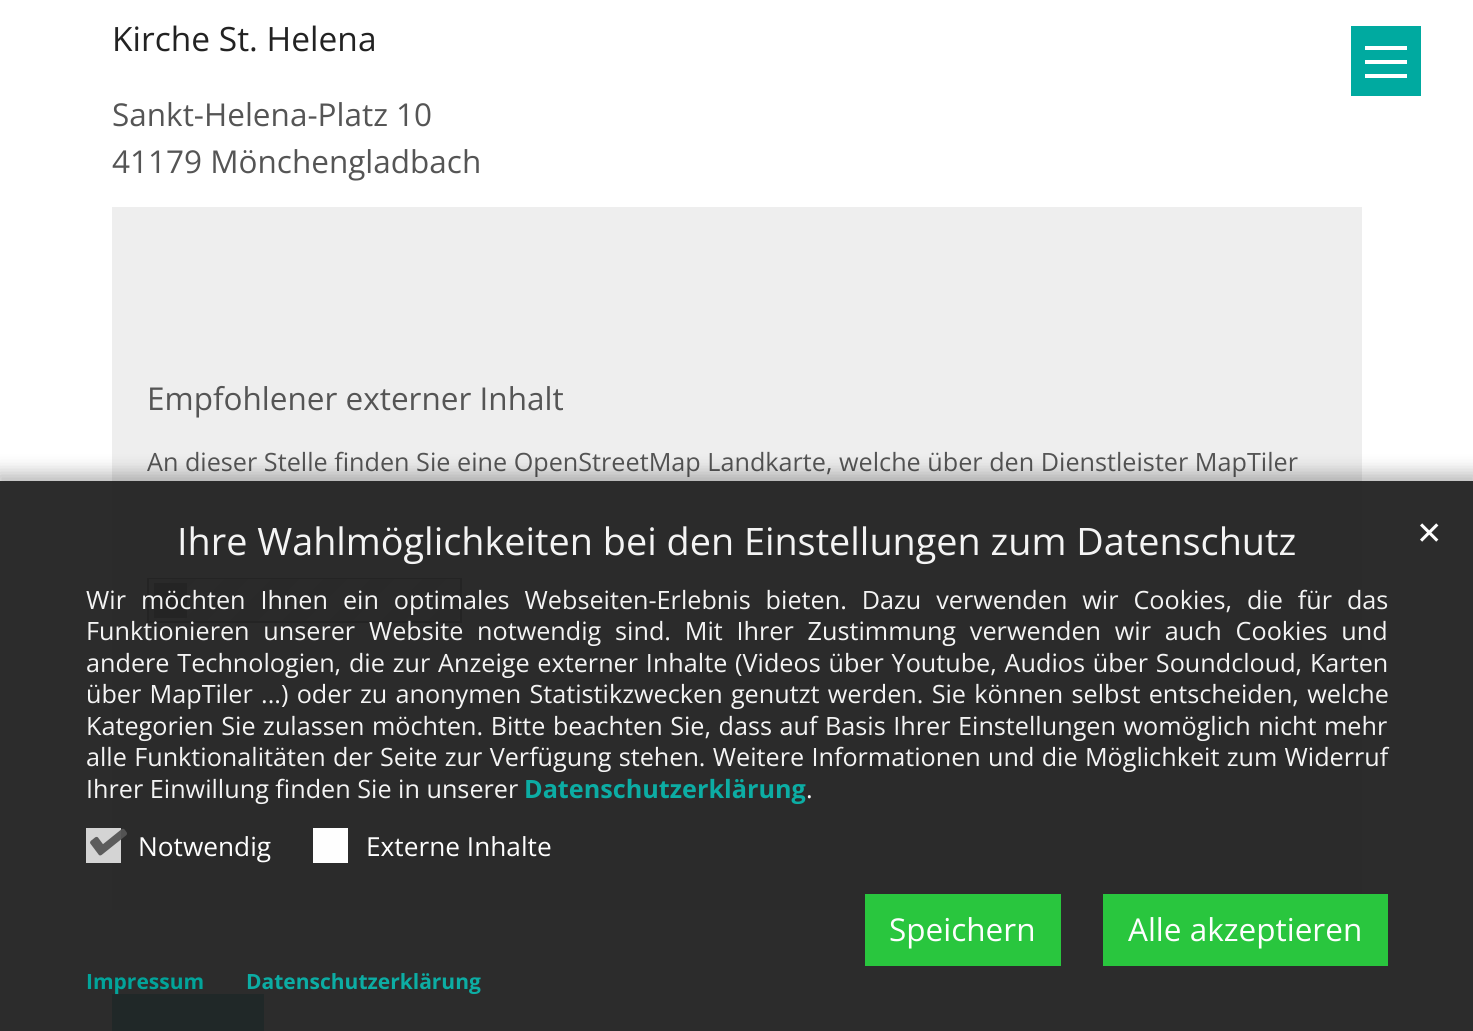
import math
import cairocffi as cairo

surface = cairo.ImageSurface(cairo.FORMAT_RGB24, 1473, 1031)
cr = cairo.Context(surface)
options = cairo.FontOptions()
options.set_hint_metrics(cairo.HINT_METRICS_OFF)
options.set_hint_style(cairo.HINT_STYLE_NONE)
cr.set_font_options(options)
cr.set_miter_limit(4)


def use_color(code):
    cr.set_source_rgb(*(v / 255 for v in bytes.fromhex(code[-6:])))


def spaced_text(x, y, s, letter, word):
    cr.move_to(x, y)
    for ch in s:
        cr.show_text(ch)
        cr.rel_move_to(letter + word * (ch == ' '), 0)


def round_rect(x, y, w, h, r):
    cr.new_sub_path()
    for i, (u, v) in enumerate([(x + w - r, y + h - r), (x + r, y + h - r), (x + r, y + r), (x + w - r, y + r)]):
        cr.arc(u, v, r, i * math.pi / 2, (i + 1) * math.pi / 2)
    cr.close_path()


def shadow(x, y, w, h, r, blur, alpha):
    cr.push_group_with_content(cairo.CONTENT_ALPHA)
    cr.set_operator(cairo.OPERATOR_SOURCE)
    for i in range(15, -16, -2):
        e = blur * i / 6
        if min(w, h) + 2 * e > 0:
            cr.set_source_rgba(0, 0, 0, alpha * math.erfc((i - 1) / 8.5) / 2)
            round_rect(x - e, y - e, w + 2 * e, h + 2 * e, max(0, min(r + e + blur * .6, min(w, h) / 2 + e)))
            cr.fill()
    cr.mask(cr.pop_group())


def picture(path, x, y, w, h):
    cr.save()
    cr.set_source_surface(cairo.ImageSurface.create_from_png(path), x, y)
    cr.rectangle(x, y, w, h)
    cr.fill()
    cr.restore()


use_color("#ffffff")
cr.paint()
cr.select_font_face("Open Sans")
cr.set_font_size(33.5)
use_color("#222222")
cr.move_to(112, 51)
cr.show_text("Kirche St. Helena")
cr.set_font_size(31.5)
use_color("#555555")
cr.move_to(112, 126)
cr.show_text("Sankt-Helena-Platz 10")
cr.move_to(112, 173)
cr.show_text("41179 Mönchengladbach")
use_color("#eeeeee")
cr.rectangle(112, 207, 1250, 703)
cr.fill()
use_color("#555555")
cr.move_to(147, 410)
cr.show_text("Empfohlener externer Inhalt")
cr.set_font_size(25.2)
cr.move_to(147, 471)
cr.show_text("An dieser Stelle finden Sie eine OpenStreetMap Landkarte, welche über den Dienstleister MapTiler")
cr.rectangle(148, 579, 313, 43)
cr.stroke()
gradient = cairo.LinearGradient(216, 512, 414, 710)
gradient.add_color_stop_rgba(0, 0.867, 0.867, 0.867, 1)
gradient.add_color_stop_rgba(0.06, 0.867, 0.867, 0.867, 1)
gradient.add_color_stop_rgba(0.06, 0.78, 0.78, 0.78, 1)
gradient.add_color_stop_rgba(0.12, 0.78, 0.78, 0.78, 1)
gradient.add_color_stop_rgba(0.12, 0.867, 0.867, 0.867, 1)
gradient.add_color_stop_rgba(0.19, 0.867, 0.867, 0.867, 1)
gradient.add_color_stop_rgba(0.19, 0.78, 0.78, 0.78, 1)
gradient.add_color_stop_rgba(0.25, 0.78, 0.78, 0.78, 1)
gradient.add_color_stop_rgba(0.25, 0.867, 0.867, 0.867, 1)
gradient.add_color_stop_rgba(0.31, 0.867, 0.867, 0.867, 1)
gradient.add_color_stop_rgba(0.31, 0.78, 0.78, 0.78, 1)
gradient.add_color_stop_rgba(0.38, 0.78, 0.78, 0.78, 1)
gradient.add_color_stop_rgba(0.38, 0.867, 0.867, 0.867, 1)
gradient.add_color_stop_rgba(0.44, 0.867, 0.867, 0.867, 1)
gradient.add_color_stop_rgba(0.44, 0.78, 0.78, 0.78, 1)
gradient.add_color_stop_rgba(0.5, 0.78, 0.78, 0.78, 1)
gradient.add_color_stop_rgba(0.5, 0.867, 0.867, 0.867, 1)
gradient.add_color_stop_rgba(0.56, 0.867, 0.867, 0.867, 1)
gradient.add_color_stop_rgba(0.56, 0.78, 0.78, 0.78, 1)
gradient.add_color_stop_rgba(0.62, 0.78, 0.78, 0.78, 1)
gradient.add_color_stop_rgba(0.62, 0.867, 0.867, 0.867, 1)
gradient.add_color_stop_rgba(0.69, 0.867, 0.867, 0.867, 1)
gradient.add_color_stop_rgba(0.69, 0.78, 0.78, 0.78, 1)
gradient.add_color_stop_rgba(0.75, 0.78, 0.78, 0.78, 1)
gradient.add_color_stop_rgba(0.75, 0.867, 0.867, 0.867, 1)
gradient.add_color_stop_rgba(0.81, 0.867, 0.867, 0.867, 1)
gradient.add_color_stop_rgba(0.81, 0.78, 0.78, 0.78, 1)
gradient.add_color_stop_rgba(0.88, 0.78, 0.78, 0.78, 1)
gradient.add_color_stop_rgba(0.88, 0.867, 0.867, 0.867, 1)
gradient.add_color_stop_rgba(0.94, 0.867, 0.867, 0.867, 1)
gradient.add_color_stop_rgba(0.94, 0.78, 0.78, 0.78, 1)
gradient.add_color_stop_rgba(1, 0.78, 0.78, 0.78, 1)
cr.set_source(gradient)
cr.rectangle(149, 579, 311, 42)
cr.fill()
use_color("#555555")
cr.rectangle(154, 583, 33, 35)
cr.fill()
use_color("#00aaa0")
cr.rectangle(112, 994, 152, 37)
cr.fill()
cr.rectangle(1351, 26, 70, 70)
cr.fill()
use_color("#ffffff")
cr.rectangle(1365, 60, 42, 4)
cr.fill()
cr.rectangle(1365, 46, 42, 4)
cr.fill()
cr.rectangle(1365, 74, 42, 4)
cr.fill()
cr.save()
cr.set_fill_rule(cairo.FILL_RULE_EVEN_ODD)
cr.new_path()
cr.move_to(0, 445)
cr.line_to(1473, 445)
cr.line_to(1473, 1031)
cr.line_to(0, 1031)
cr.close_path()
cr.move_to(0, 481)
cr.line_to(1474, 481)
cr.line_to(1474, 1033)
cr.line_to(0, 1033)
cr.close_path()
cr.clip()
use_color("#000000")
shadow(-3, 473, 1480, 558, 0, 9, 0.28)
cr.restore()
cr.set_source_rgba(0.133, 0.133, 0.133, 0.95)
cr.rectangle(0, 481, 1473, 550)
cr.fill()
cr.set_font_size(37.8)
use_color("#f4f4f4")
cr.move_to(177, 555)
cr.show_text("Ihre Wahlmöglichkeiten bei den Einstellungen zum Datenschutz")
cr.select_font_face("DejaVu Sans")
cr.set_font_size(31.5)
use_color("#fefefe")
cr.move_to(1416, 544)
cr.show_text("✕")
cr.select_font_face("Open Sans")
cr.set_font_size(25.2)
use_color("#f4f4f4")
spaced_text(86, 609, "Wir möchten Ihnen ein optimales Webseiten-Erlebnis bieten. Dazu verwenden wir Cookies, die für das", 0, 8.4)
spaced_text(86, 640, "Funktionieren unserer Website notwendig sind. Mit Ihrer Zustimmung verwenden wir auch Cookies und", 0, 7.25)
spaced_text(86, 672, "andere Technologien, die zur Anzeige externer Inhalte (Videos über Youtube, Audios über Soundcloud, Karten", 0, 1.25)
spaced_text(86, 703, "über MapTiler ...) oder zu anonymen Statistikzwecken genutzt werden. Sie können selbst entscheiden, welche", 0, 1.75)
spaced_text(86, 735, "Kategorien Sie zulassen möchten. Bitte beachten Sie, dass auf Basis Ihrer Einstellungen womöglich nicht mehr", 0, 1)
spaced_text(86, 766, "alle Funktionalitäten der Seite zur Verfügung stehen. Weitere Informationen und die Möglichkeit zum Widerruf", 0, 0.75)
cr.move_to(86, 798)
cr.show_text("Ihrer Einwillung finden Sie in unserer")
cr.select_font_face("Open Sans", cairo.FONT_SLANT_NORMAL, cairo.FONT_WEIGHT_BOLD)
use_color("#0cada4")
cr.move_to(524, 798)
cr.show_text("Datenschutzerklärung")
cr.select_font_face("Open Sans")
use_color("#fefefe")
cr.move_to(806, 798)
cr.show_text(".")
use_color("#d4d4d4")
cr.rectangle(86, 828, 35, 35)
cr.fill()
picture("img1.png", 90, 828, 37, 28)
cr.set_font_size(26.25)
use_color("#fefefe")
cr.move_to(138, 856)
cr.show_text("Notwendig")
cr.rectangle(313, 828, 35, 35)
cr.fill()
cr.move_to(366, 856)
cr.show_text("Externe Inhalte")
use_color("#29c63e")
cr.rectangle(865, 894, 196, 72)
cr.fill()
cr.set_font_size(31.5)
use_color("#fefefe")
cr.move_to(889, 941)
cr.show_text("Speichern")
use_color("#29c63e")
cr.rectangle(1103, 894, 285, 72)
cr.fill()
use_color("#fefefe")
cr.move_to(1128, 941)
cr.show_text("Alle akzeptieren")
cr.select_font_face("Open Sans", cairo.FONT_SLANT_NORMAL, cairo.FONT_WEIGHT_BOLD)
cr.set_font_size(21)
use_color("#02a49a")
cr.move_to(86, 989)
cr.show_text("Impressum")
use_color("#0cada4")
cr.move_to(246, 989)
cr.show_text("Datenschutzerklärung")
surface.write_to_png("result.png")
